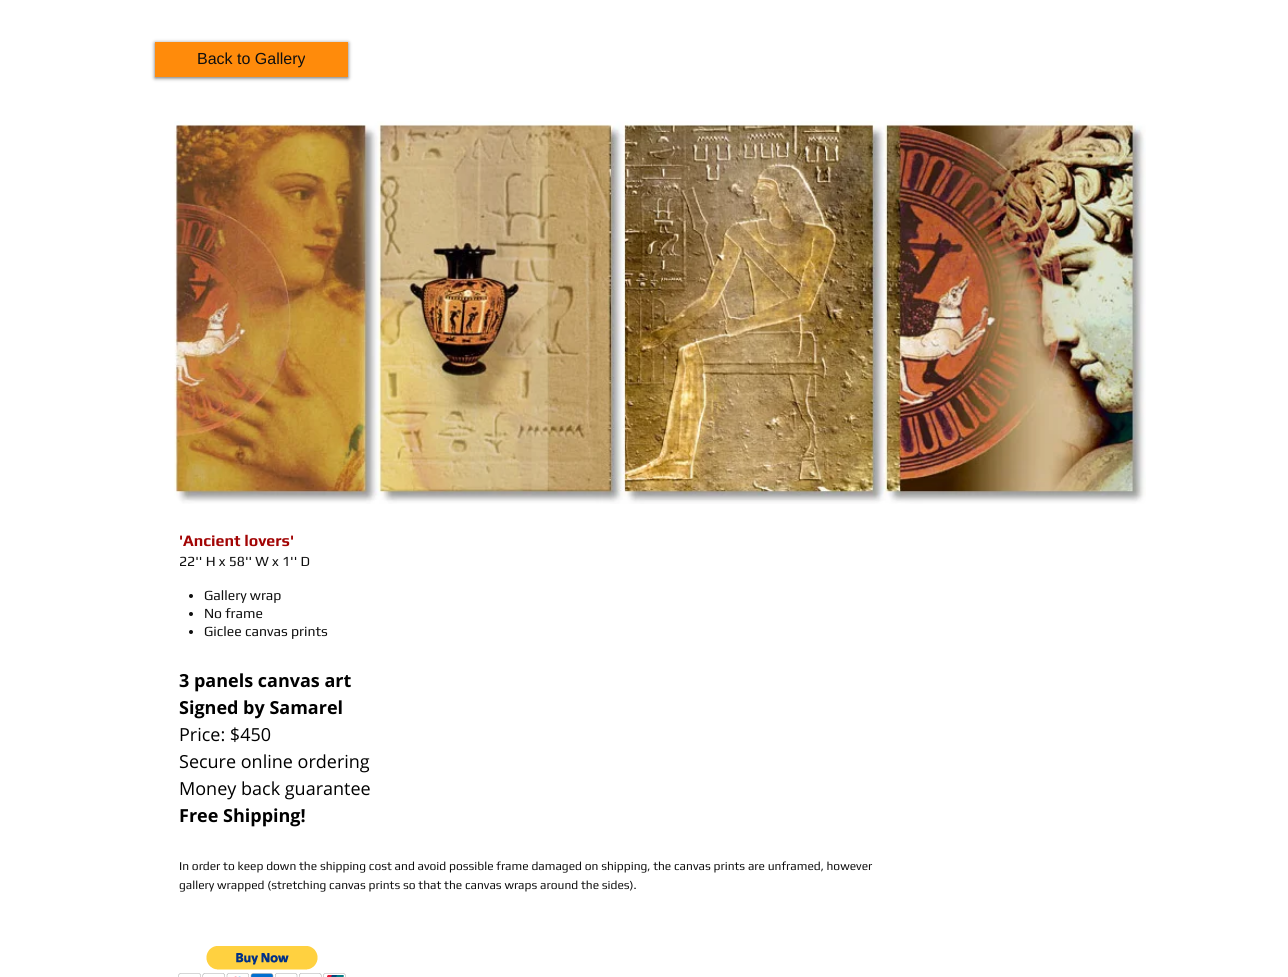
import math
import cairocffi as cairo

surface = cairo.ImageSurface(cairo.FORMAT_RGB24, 1288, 977)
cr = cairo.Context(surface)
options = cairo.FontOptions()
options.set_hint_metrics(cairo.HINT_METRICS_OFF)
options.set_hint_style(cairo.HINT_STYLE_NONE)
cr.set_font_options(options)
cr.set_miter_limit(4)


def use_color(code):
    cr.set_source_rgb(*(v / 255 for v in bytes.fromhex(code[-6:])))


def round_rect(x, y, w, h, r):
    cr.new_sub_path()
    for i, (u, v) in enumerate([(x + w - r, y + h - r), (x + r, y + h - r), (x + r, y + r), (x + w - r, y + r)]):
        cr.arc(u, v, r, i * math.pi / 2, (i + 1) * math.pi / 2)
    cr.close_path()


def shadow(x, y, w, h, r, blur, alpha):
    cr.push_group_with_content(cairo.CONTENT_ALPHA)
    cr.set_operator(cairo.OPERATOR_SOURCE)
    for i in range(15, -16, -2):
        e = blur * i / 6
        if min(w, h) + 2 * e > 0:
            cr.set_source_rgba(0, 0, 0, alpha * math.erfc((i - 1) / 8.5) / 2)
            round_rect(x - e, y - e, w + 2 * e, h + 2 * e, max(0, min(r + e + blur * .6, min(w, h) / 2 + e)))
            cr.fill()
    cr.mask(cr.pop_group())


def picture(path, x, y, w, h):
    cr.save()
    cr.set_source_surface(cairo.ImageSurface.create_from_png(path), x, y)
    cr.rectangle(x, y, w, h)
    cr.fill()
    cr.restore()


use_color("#ffffff")
cr.paint()
use_color("#000000")
shadow(155, 43, 193, 35, 0, 2, 0.6)
use_color("#ff8b0b")
cr.rectangle(155, 42, 193, 35)
cr.fill()
cr.select_font_face("Liberation Sans")
cr.set_font_size(16)
use_color("#0f0f0f")
cr.move_to(197, 64)
cr.show_text("Back to Gallery")
picture("img1.png", 174, 121, 972, 383)
cr.select_font_face("Play", cairo.FONT_SLANT_NORMAL, cairo.FONT_WEIGHT_BOLD)
use_color("#a20404")
cr.move_to(179, 546)
cr.show_text("'Ancient lovers'")
cr.select_font_face("Play")
cr.set_font_size(14)
use_color("#0f0f0f")
cr.move_to(179, 566)
cr.show_text("22'' H x 58'' W x 1'' D")
cr.new_path()
cr.arc(191, 596, 2, 0, 2 * math.pi)
cr.fill()
cr.move_to(204, 600)
cr.show_text("Gallery wrap")
cr.new_path()
cr.arc(191, 614, 2, 0, 2 * math.pi)
cr.fill()
cr.move_to(204, 618)
cr.show_text("No frame")
cr.new_path()
cr.arc(191, 632, 2, 0, 2 * math.pi)
cr.fill()
cr.move_to(204, 636)
cr.show_text("Giclee canvas prints")
cr.select_font_face("Open Sans", cairo.FONT_SLANT_NORMAL, cairo.FONT_WEIGHT_BOLD)
cr.set_font_size(18)
use_color("#000000")
cr.move_to(179, 687)
cr.show_text("3 panels canvas art")
cr.move_to(179, 714)
cr.show_text("Signed by Samarel")
cr.select_font_face("Open Sans")
cr.move_to(179, 741)
cr.show_text("Price: $450")
cr.move_to(179, 768)
cr.show_text("Secure online ordering")
cr.move_to(179, 795)
cr.show_text("Money back guarantee")
cr.select_font_face("Open Sans", cairo.FONT_SLANT_NORMAL, cairo.FONT_WEIGHT_BOLD)
cr.move_to(179, 822)
cr.show_text("Free Shipping!")
cr.select_font_face("Play")
cr.set_font_size(12)
use_color("#0f0f0f")
cr.move_to(179, 870)
cr.show_text("In order to keep down the shipping cost and avoid possible frame damaged on shipping, the canvas prints are unframed, however")
cr.move_to(179, 889)
cr.show_text("gallery wrapped (stretching canvas prints so that the canvas wraps around the sides).")
picture("img2.png", 178, 946, 168, 31)
surface.write_to_png("result.png")
